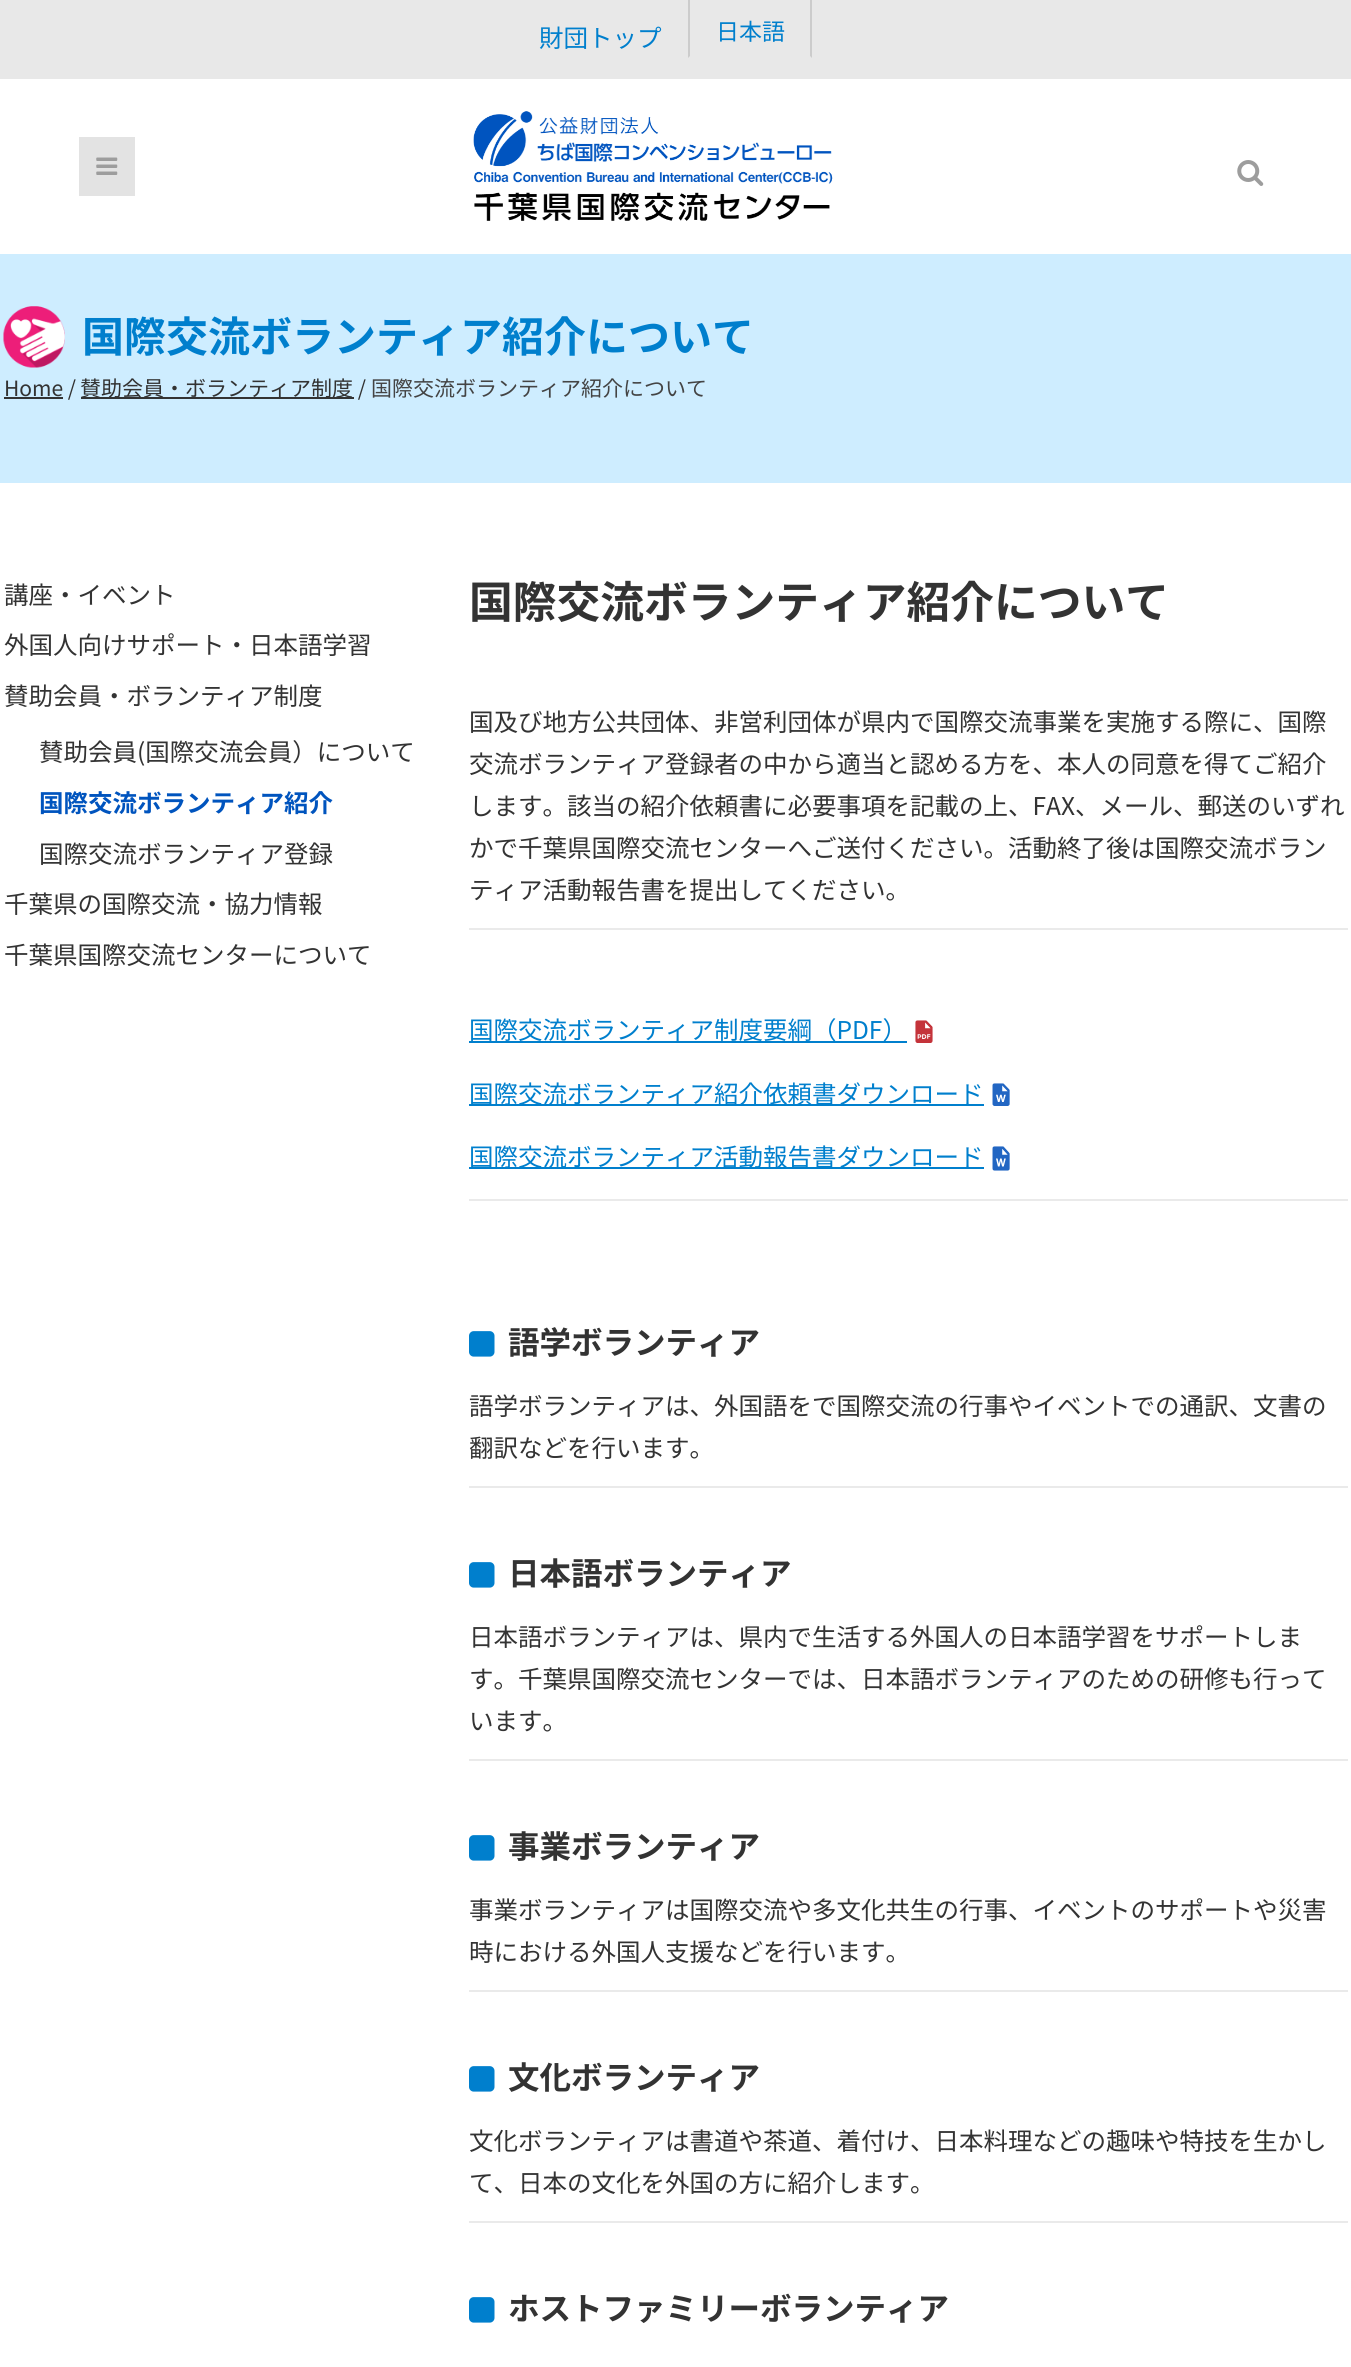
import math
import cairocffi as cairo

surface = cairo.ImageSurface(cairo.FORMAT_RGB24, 1351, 2367)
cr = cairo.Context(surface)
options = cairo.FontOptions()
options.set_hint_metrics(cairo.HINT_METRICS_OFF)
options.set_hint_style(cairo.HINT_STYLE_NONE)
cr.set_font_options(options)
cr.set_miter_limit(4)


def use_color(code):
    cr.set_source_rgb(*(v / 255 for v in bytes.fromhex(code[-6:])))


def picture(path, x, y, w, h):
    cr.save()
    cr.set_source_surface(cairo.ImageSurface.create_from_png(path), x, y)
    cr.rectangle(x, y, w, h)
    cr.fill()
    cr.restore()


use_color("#ffffff")
cr.paint()
use_color("#e8e8e8")
cr.rectangle(0, 0, 1351, 79)
cr.fill()
cr.select_font_face("Noto Sans JP")
cr.set_font_size(24.5)
use_color("#007fcd")
cr.move_to(539, 47)
cr.show_text("財団トップ")
use_color("#cccccc")
cr.new_path()
cr.move_to(812, -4)
cr.line_to(812, 58)
cr.line_to(810, 56)
cr.line_to(810, -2)
cr.close_path()
cr.fill()
cr.new_path()
cr.move_to(688, 58)
cr.line_to(688, -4)
cr.line_to(690, -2)
cr.line_to(690, 56)
cr.close_path()
cr.fill()
cr.set_font_size(23)
use_color("#007fcd")
cr.move_to(716, 40)
cr.show_text("日本語")
use_color("#e3e3e3")
cr.rectangle(79, 137, 56, 59)
cr.fill()
picture("img1.png", 96, 157, 22, 18)
picture("img2.png", 473, 111, 360, 110)
picture("img3.png", 1237, 160, 27, 26)
use_color("#ceedff")
cr.rectangle(0, 254, 1351, 229)
cr.fill()
picture("img4.png", 3, 306, 62, 62)
cr.select_font_face("Noto Sans JP", cairo.FONT_SLANT_NORMAL, cairo.FONT_WEIGHT_BOLD)
cr.set_font_size(42)
use_color("#007fcd")
cr.move_to(82, 352)
cr.show_text("国際交流ボランティア紹介について")
use_color("#333333")
cr.rectangle(4, 397, 59, 2)
cr.fill()
cr.select_font_face("Noto Sans JP")
cr.set_font_size(21)
cr.move_to(4, 396)
cr.show_text("Home /")
cr.rectangle(81, 397, 273, 2)
cr.fill()
cr.move_to(80, 396)
cr.show_text("賛助会員・ボランティア制度 /")
use_color("#444444")
cr.move_to(371, 396)
cr.show_text("国際交流ボランティア紹介について")
cr.set_font_size(24.5)
use_color("#333333")
cr.move_to(4, 604)
cr.show_text("講座・イベント")
cr.move_to(4, 654)
cr.show_text("外国人向けサポート・日本語学習")
cr.move_to(4, 705)
cr.show_text("賛助会員・ボランティア制度")
cr.move_to(39, 761)
cr.show_text("賛助会員(国際交流会員）について")
cr.select_font_face("Noto Sans JP", cairo.FONT_SLANT_NORMAL, cairo.FONT_WEIGHT_BOLD)
use_color("#0054be")
cr.move_to(39, 812)
cr.show_text("国際交流ボランティア紹介")
cr.select_font_face("Noto Sans JP")
use_color("#333333")
cr.move_to(39, 863)
cr.show_text("国際交流ボランティア登録")
cr.move_to(4, 913)
cr.show_text("千葉県の国際交流・協力情報")
cr.move_to(4, 964)
cr.show_text("千葉県国際交流センターについて")
cr.select_font_face("Noto Sans JP", cairo.FONT_SLANT_NORMAL, cairo.FONT_WEIGHT_BOLD)
cr.set_font_size(43.75)
cr.move_to(469, 618)
cr.show_text("国際交流ボランティア紹介について")
cr.select_font_face("Noto Sans JP")
cr.set_font_size(24.5)
cr.move_to(469, 731)
cr.show_text("国及び地方公共団体、非営利団体が県内で国際交流事業を実施する際に、国際")
cr.move_to(469, 773)
cr.show_text("交流ボランティア登録者の中から適当と認める方を、本人の同意を得てご紹介")
cr.move_to(469, 815)
cr.show_text("します。該当の紹介依頼書に必要事項を記載の上、FAX、メール、郵送のいずれ")
cr.move_to(469, 857)
cr.show_text("かで千葉県国際交流センターへご送付ください。活動終了後は国際交流ボラン")
cr.move_to(469, 899)
cr.show_text("ティア活動報告書を提出してください。")
use_color("#eaeaea")
cr.rectangle(469, 928, 879, 2)
cr.fill()
use_color("#007fcd")
cr.rectangle(469, 1041, 438, 2)
cr.fill()
cr.move_to(469, 1039)
cr.show_text("国際交流ボランティア制度要綱（PDF）")
picture("img5.png", 915, 1020, 18, 23)
cr.rectangle(469, 1104, 515, 2)
cr.fill()
cr.move_to(469, 1103)
cr.show_text("国際交流ボランティア紹介依頼書ダウンロード")
picture("img6.png", 992, 1083, 18, 23)
cr.rectangle(469, 1167, 515, 2)
cr.fill()
cr.move_to(469, 1166)
cr.show_text("国際交流ボランティア活動報告書ダウンロード")
picture("img7.png", 992, 1146, 18, 25)
use_color("#eaeaea")
cr.rectangle(469, 1199, 879, 2)
cr.fill()
picture("img8.png", 469, 1331, 26, 26)
cr.select_font_face("Noto Sans JP", cairo.FONT_SLANT_NORMAL, cairo.FONT_WEIGHT_BOLD)
cr.set_font_size(31.5)
use_color("#333333")
cr.move_to(508, 1354)
cr.show_text("語学ボランティア")
cr.select_font_face("Noto Sans JP")
cr.set_font_size(24.5)
cr.move_to(469, 1415)
cr.show_text("語学ボランティアは、外国語をで国際交流の行事やイベントでの通訳、文書の")
cr.move_to(469, 1457)
cr.show_text("翻訳などを行います。")
use_color("#eaeaea")
cr.rectangle(469, 1486, 879, 2)
cr.fill()
picture("img8.png", 469, 1562, 26, 26)
cr.select_font_face("Noto Sans JP", cairo.FONT_SLANT_NORMAL, cairo.FONT_WEIGHT_BOLD)
cr.set_font_size(31.5)
use_color("#333333")
cr.move_to(508, 1585)
cr.show_text("日本語ボランティア")
cr.select_font_face("Noto Sans JP")
cr.set_font_size(24.5)
cr.move_to(469, 1646)
cr.show_text("日本語ボランティアは、県内で生活する外国人の日本語学習をサポートしま")
cr.move_to(469, 1688)
cr.show_text("す。千葉県国際交流センターでは、日本語ボランティアのための研修も行って")
cr.move_to(469, 1730)
cr.show_text("います。")
use_color("#eaeaea")
cr.rectangle(469, 1759, 879, 2)
cr.fill()
picture("img8.png", 469, 1835, 26, 26)
cr.select_font_face("Noto Sans JP", cairo.FONT_SLANT_NORMAL, cairo.FONT_WEIGHT_BOLD)
cr.set_font_size(31.5)
use_color("#333333")
cr.move_to(508, 1858)
cr.show_text("事業ボランティア")
cr.select_font_face("Noto Sans JP")
cr.set_font_size(24.5)
cr.move_to(469, 1919)
cr.show_text("事業ボランティアは国際交流や多文化共生の行事、イベントのサポートや災害")
cr.move_to(469, 1961)
cr.show_text("時における外国人支援などを行います。")
use_color("#eaeaea")
cr.rectangle(469, 1990, 879, 2)
cr.fill()
picture("img8.png", 469, 2066, 26, 26)
cr.select_font_face("Noto Sans JP", cairo.FONT_SLANT_NORMAL, cairo.FONT_WEIGHT_BOLD)
cr.set_font_size(31.5)
use_color("#333333")
cr.move_to(508, 2089)
cr.show_text("文化ボランティア")
cr.select_font_face("Noto Sans JP")
cr.set_font_size(24.5)
cr.move_to(469, 2150)
cr.show_text("文化ボランティアは書道や茶道、着付け、日本料理などの趣味や特技を生かし")
cr.move_to(469, 2192)
cr.show_text("て、日本の文化を外国の方に紹介します。")
use_color("#eaeaea")
cr.rectangle(469, 2221, 879, 2)
cr.fill()
picture("img8.png", 469, 2297, 26, 26)
cr.select_font_face("Noto Sans JP", cairo.FONT_SLANT_NORMAL, cairo.FONT_WEIGHT_BOLD)
cr.set_font_size(31.5)
use_color("#333333")
cr.move_to(508, 2320)
cr.show_text("ホストファミリーボランティア")
surface.write_to_png("result.png")
